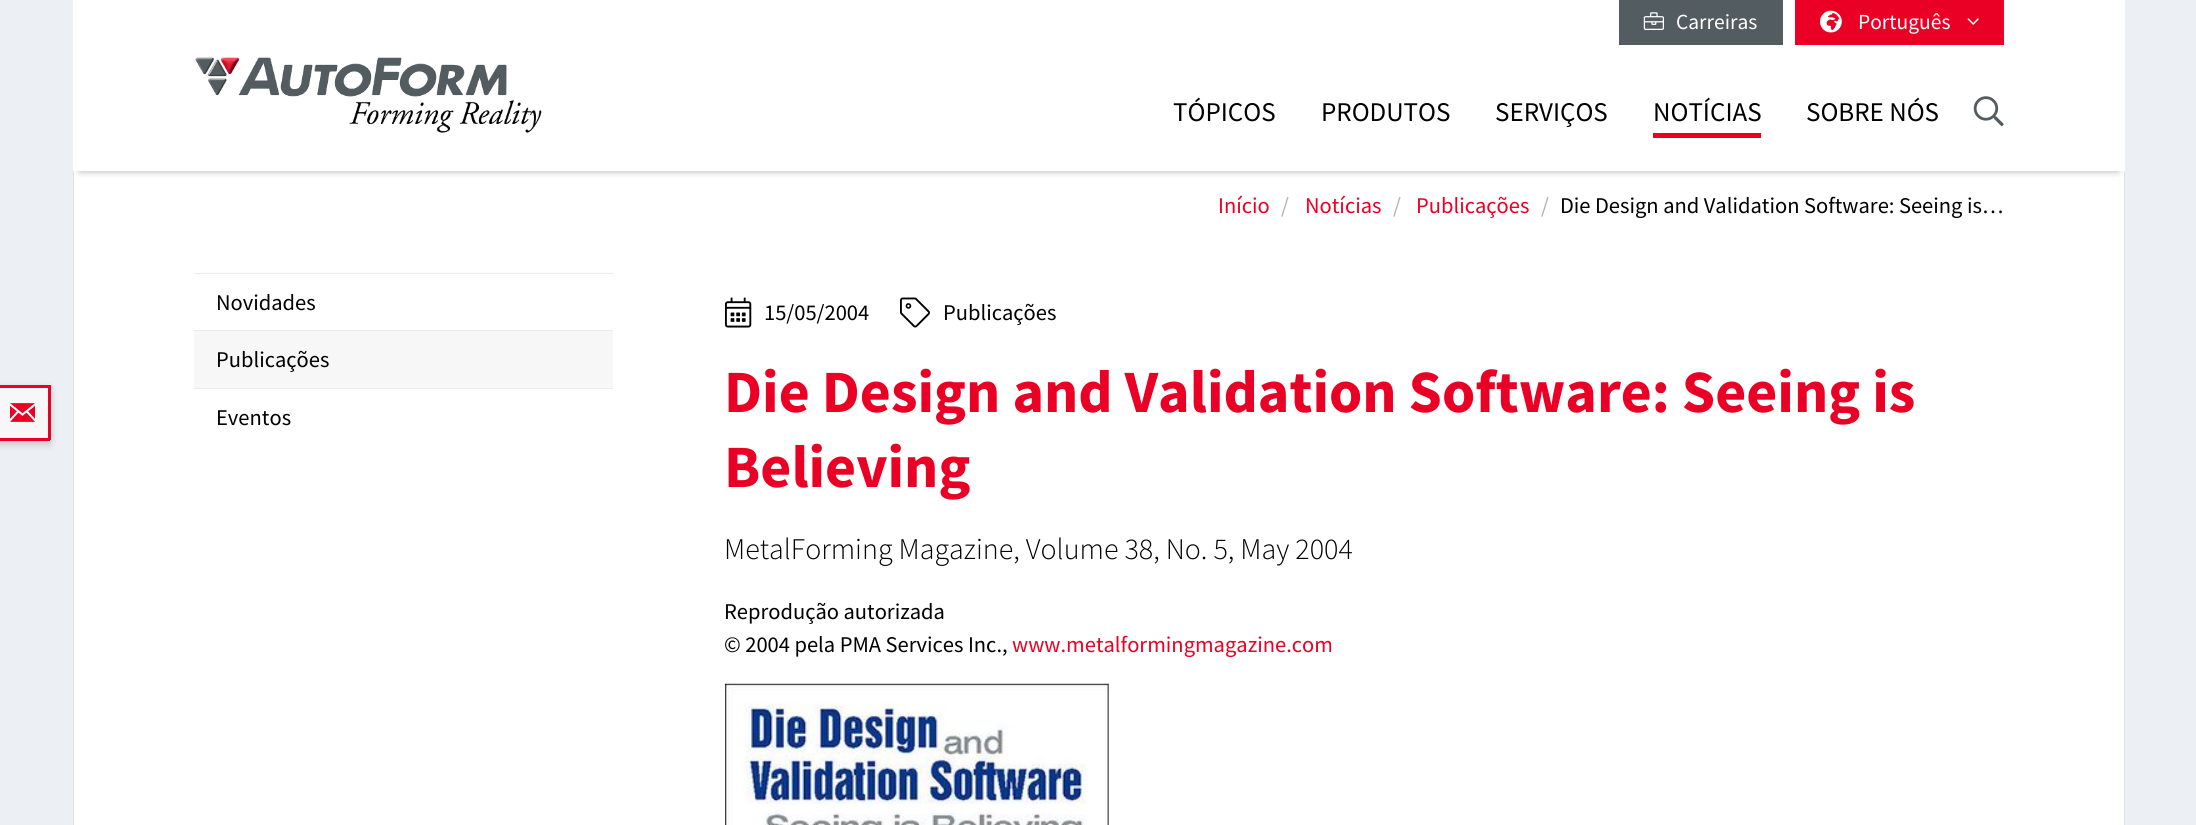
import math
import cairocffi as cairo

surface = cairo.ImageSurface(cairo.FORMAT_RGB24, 2196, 825)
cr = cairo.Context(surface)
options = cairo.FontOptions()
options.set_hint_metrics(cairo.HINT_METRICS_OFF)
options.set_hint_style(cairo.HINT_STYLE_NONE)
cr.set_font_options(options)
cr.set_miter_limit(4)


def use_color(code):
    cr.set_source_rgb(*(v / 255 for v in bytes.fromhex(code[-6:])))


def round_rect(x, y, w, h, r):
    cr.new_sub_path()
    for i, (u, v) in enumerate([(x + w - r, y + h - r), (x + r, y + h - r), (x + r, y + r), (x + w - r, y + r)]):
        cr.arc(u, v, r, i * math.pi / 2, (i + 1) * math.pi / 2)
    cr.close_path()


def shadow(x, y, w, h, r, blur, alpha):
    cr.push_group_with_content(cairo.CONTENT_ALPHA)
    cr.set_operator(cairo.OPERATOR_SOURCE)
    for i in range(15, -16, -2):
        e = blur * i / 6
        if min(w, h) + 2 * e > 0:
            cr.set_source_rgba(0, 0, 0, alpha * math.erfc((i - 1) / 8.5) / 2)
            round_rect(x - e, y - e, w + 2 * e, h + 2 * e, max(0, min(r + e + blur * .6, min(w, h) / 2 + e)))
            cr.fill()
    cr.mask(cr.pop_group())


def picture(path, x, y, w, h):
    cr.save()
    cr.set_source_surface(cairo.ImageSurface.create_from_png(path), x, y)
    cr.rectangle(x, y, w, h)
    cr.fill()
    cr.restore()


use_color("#eceff4")
cr.paint()
use_color("#ffffff")
cr.rectangle(74, 171, 2050, 654)
cr.fill()
use_color("#dee2e6")
cr.rectangle(2124, 171, 1, 654)
cr.fill()
cr.rectangle(73, 171, 1, 654)
cr.fill()
use_color("#ffffff")
cr.rectangle(73, 0, 2052, 45)
cr.fill()
use_color("#535c61")
cr.rectangle(1619, 0, 164, 45)
cr.fill()
picture("img1.png", 1643, 12, 21, 18)
cr.select_font_face("Source Sans Pro")
cr.set_font_size(21.5)
use_color("#ffffff")
cr.move_to(1676, 29)
cr.show_text("Carreiras")
use_color("#e90024")
cr.rectangle(1795, 0, 209, 45)
cr.fill()
picture("img2.png", 1820, 10, 22, 23)
use_color("#ffffff")
cr.move_to(1858, 29)
cr.show_text("Português")
picture("img3.png", 1967, 18, 12, 7)
use_color("#000000")
shadow(80, 60, 2038, 111, 0, 4, 0.16)
shadow(80, 60, 2038, 111, 0, 4, 0.16)
use_color("#ffffff")
cr.rectangle(73, 45, 2052, 126)
cr.fill()
picture("img4.png", 195, 57, 347, 76)
cr.set_font_size(27)
use_color("#000000")
cr.move_to(1173, 121)
cr.show_text("TÓPICOS")
cr.move_to(1321, 121)
cr.show_text("PRODUTOS")
cr.move_to(1495, 121)
cr.show_text("SERVIÇOS")
cr.move_to(1653, 121)
cr.show_text("NOTÍCIAS")
use_color("#e90024")
cr.rectangle(1653, 133, 108, 5)
cr.fill()
use_color("#000000")
cr.move_to(1806, 121)
cr.show_text("SOBRE NÓS")
picture("img5.png", 1973, 96, 31, 31)
use_color("#000000")
shadow(-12, 389, 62, 55, 0, 4, 0.1)
shadow(-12, 389, 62, 55, 0, 4, 0.1)
use_color("#e90024")
cr.rectangle(0, 385, 50, 3)
cr.fill()
cr.rectangle(48, 385, 3, 55)
cr.fill()
cr.rectangle(0, 438, 50, 3)
cr.fill()
use_color("#f7f7f7")
cr.rectangle(0, 388, 48, 50)
cr.fill()
picture("img6.png", 10, 403, 25, 19)
cr.set_font_size(22.5)
use_color("#e90024")
cr.move_to(1218, 213)
cr.show_text("Início")
use_color("#b0b0b0")
cr.move_to(1281, 213)
cr.show_text("/")
use_color("#e90024")
cr.move_to(1305, 213)
cr.show_text("Notícias")
use_color("#b0b0b0")
cr.move_to(1393, 213)
cr.show_text("/")
use_color("#e90024")
cr.move_to(1416, 213)
cr.show_text("Publicações")
use_color("#b0b0b0")
cr.move_to(1541, 213)
cr.show_text("/")
use_color("#000000")
cr.move_to(1560, 213)
cr.show_text("Die Design and Validation Software: Seeing is…")
use_color("#e9ecef")
cr.rectangle(194, 273, 419, 1)
cr.fill()
use_color("#000000")
cr.move_to(216, 310)
cr.show_text("Novidades")
use_color("#f7f7f7")
cr.rectangle(194, 331, 419, 57)
cr.fill()
use_color("#e9ecef")
cr.rectangle(194, 330, 419, 1)
cr.fill()
use_color("#000000")
cr.move_to(216, 367)
cr.show_text("Publicações")
use_color("#e9ecef")
cr.rectangle(194, 388, 419, 1)
cr.fill()
use_color("#000000")
cr.move_to(216, 425)
cr.show_text("Eventos")
picture("img7.png", 725, 297, 27, 31)
cr.move_to(764, 320)
cr.show_text("15/05/2004")
picture("img8.png", 900, 297, 30, 31)
cr.move_to(943, 320)
cr.show_text("Publicações")
cr.select_font_face("Source Sans Pro", cairo.FONT_SLANT_NORMAL, cairo.FONT_WEIGHT_BOLD)
cr.set_font_size(60)
use_color("#e90024")
cr.move_to(724, 412)
cr.show_text("Die Design and Validation Software: Seeing is")
cr.move_to(724, 487)
cr.show_text("Believing")
cr.select_font_face("Source Sans Pro Light")
cr.set_font_size(30)
use_color("#000000")
cr.move_to(724, 559)
cr.show_text("MetalForming Magazine, Volume 38, No. 5, May 2004")
cr.select_font_face("Source Sans Pro")
cr.set_font_size(22.5)
cr.move_to(724, 619)
cr.show_text("Reprodução autorizada")
cr.move_to(724, 652)
cr.show_text("© 2004 pela PMA Services Inc.,")
use_color("#e90024")
cr.move_to(1012, 652)
cr.show_text("www.metalformingmagazine.com")
picture("img9.png", 725, 683, 384, 142)
surface.write_to_png("result.png")
